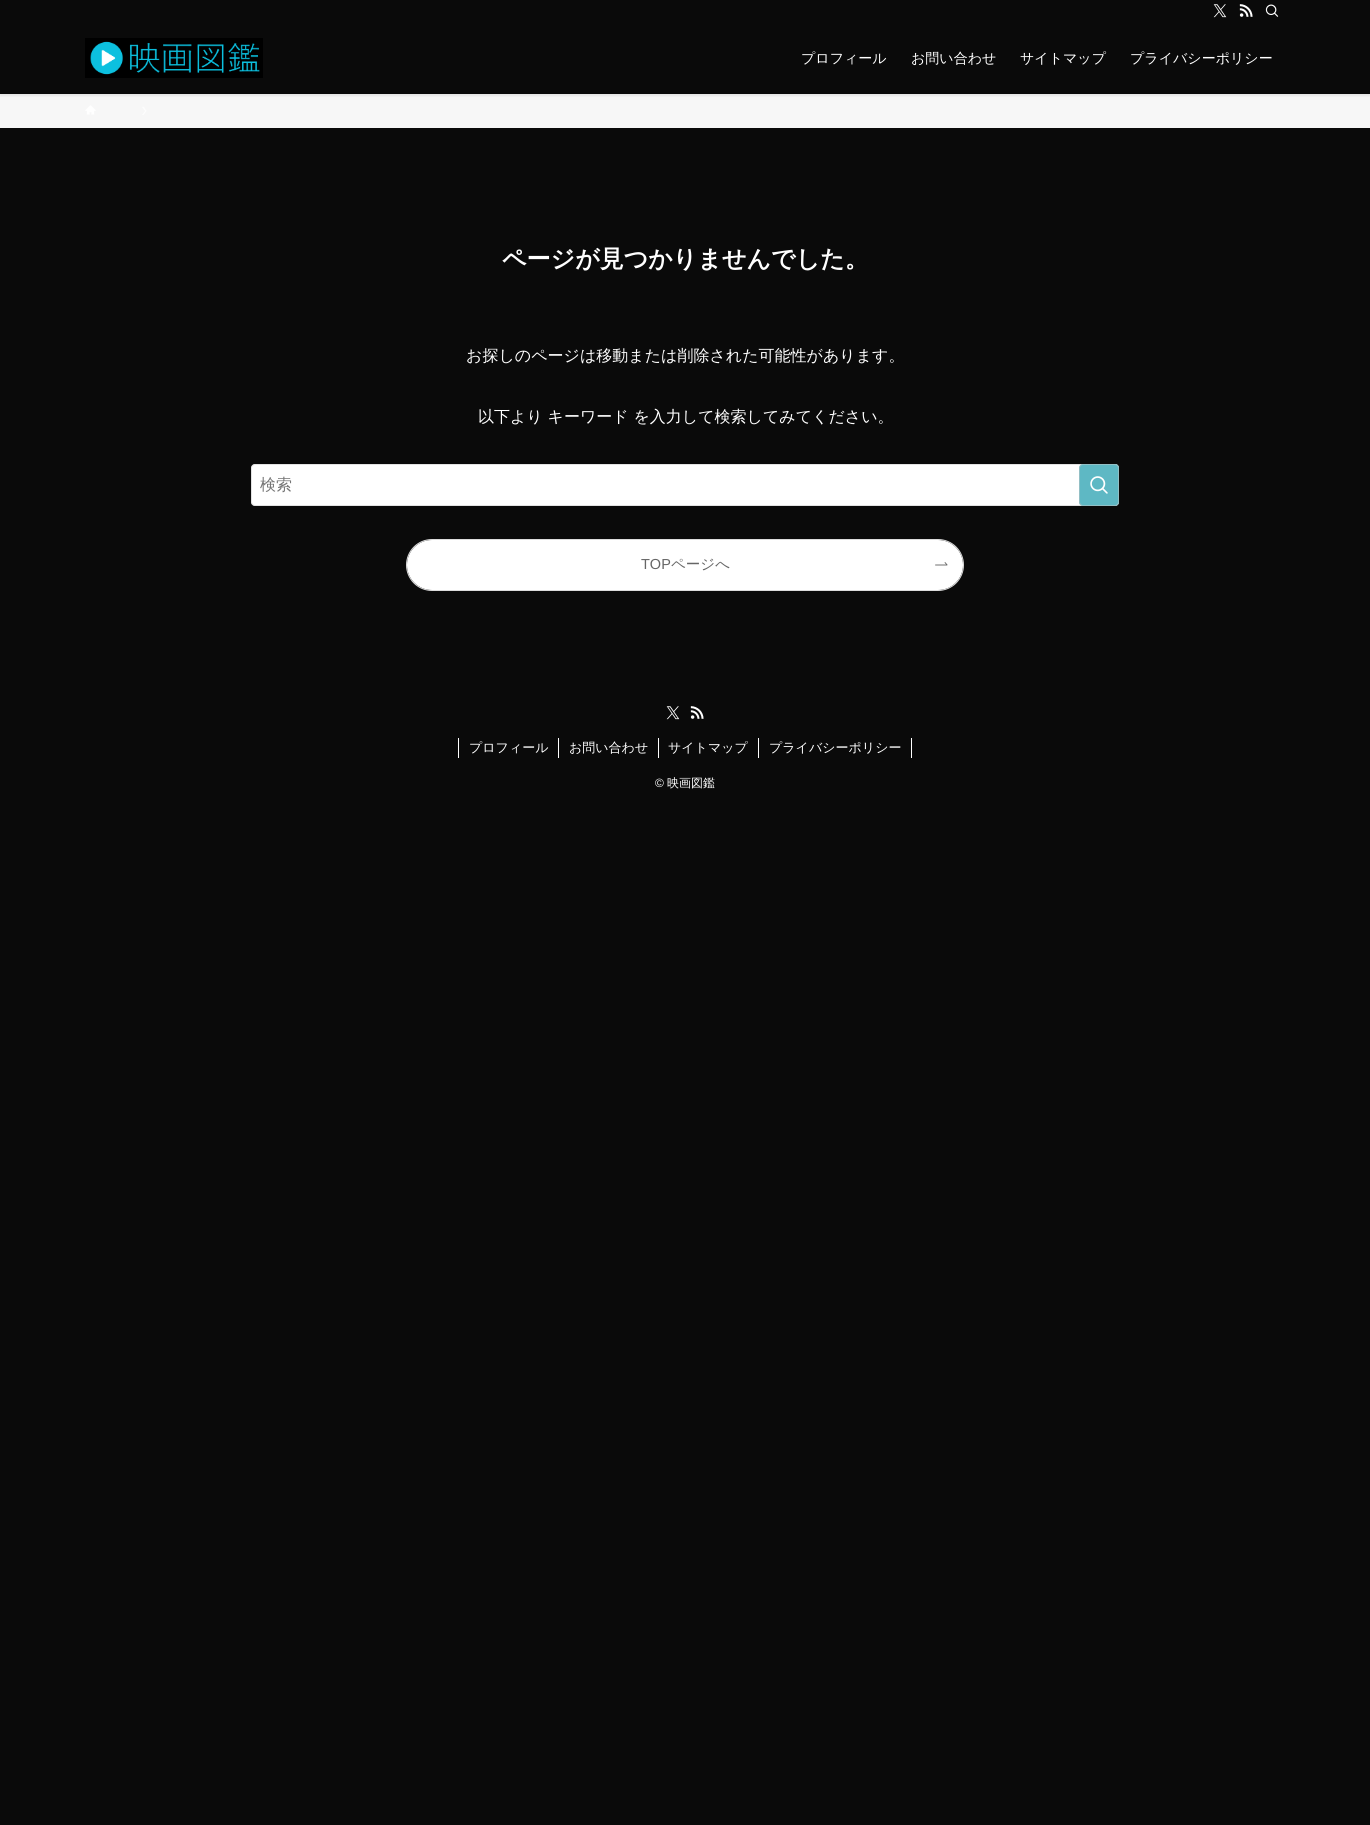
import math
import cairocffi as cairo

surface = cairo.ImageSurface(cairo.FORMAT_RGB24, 1370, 1825)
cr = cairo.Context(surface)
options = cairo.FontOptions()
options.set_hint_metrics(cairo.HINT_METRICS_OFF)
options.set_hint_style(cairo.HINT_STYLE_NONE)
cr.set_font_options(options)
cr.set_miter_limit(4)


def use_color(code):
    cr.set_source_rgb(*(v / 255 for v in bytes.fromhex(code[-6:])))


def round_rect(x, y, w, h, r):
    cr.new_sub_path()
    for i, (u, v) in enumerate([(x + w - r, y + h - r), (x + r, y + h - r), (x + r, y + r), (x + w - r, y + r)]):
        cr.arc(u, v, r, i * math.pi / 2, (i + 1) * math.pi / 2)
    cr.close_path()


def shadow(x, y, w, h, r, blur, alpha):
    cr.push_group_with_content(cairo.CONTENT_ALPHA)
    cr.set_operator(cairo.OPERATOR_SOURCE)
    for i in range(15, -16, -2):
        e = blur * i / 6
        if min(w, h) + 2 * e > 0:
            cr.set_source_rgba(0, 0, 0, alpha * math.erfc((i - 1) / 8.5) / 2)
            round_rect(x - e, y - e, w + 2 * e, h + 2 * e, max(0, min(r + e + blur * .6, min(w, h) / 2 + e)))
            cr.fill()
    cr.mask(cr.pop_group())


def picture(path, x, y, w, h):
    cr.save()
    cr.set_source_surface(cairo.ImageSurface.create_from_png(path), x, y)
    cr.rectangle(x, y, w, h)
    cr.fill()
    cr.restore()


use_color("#0a0a0a")
cr.paint()
use_color("#f7f7f7")
cr.rectangle(0, 94, 1370, 34)
cr.fill()
cr.save()
cr.rectangle(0, 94, 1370, 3)
cr.clip()
use_color("#000000")
shadow(0, 1, 1370, 94, 0, 2, 0.12)
cr.restore()
picture("img1.png", 1213, 4, 14, 14)
picture("img2.png", 1239, 4, 14, 13)
picture("img3.png", 1265, 4, 14, 13)
picture("img4.png", 85, 38, 178, 40)
cr.select_font_face("WenQuanYi Zen Hei Medium")
cr.set_font_size(14)
use_color("#ffffff")
cr.move_to(801, 63)
cr.show_text("プロフィール")
cr.move_to(911, 63)
cr.show_text("お問い合わせ")
cr.move_to(1020, 63)
cr.show_text("サイトマップ")
cr.move_to(1130, 63)
cr.show_text("プライバシーポリシー")
picture("img5.png", 85, 105, 11, 10)
use_color("#fdfdfd")
cr.new_path()
cr.move_to(143.5, 106.5)
cr.line_to(142, 107)
cr.line_to(145, 111)
cr.line_to(142, 115)
cr.line_to(143.5, 115)
cr.line_to(146.5, 111)
cr.close_path()
cr.fill()
cr.select_font_face("WenQuanYi Zen Hei", cairo.FONT_SLANT_NORMAL, cairo.FONT_WEIGHT_BOLD)
cr.set_font_size(24)
use_color("#ffffff")
cr.move_to(502, 267)
cr.show_text("ページが見つかりませんでした。")
cr.select_font_face("WenQuanYi Zen Hei Medium")
cr.set_font_size(16)
cr.move_to(466, 361)
cr.show_text("お探しのページは移動または削除された可能性があります。")
cr.move_to(478, 422)
cr.show_text("以下より キーワード を入力して検索してみてください。")
round_rect(251, 464, 868, 42, 4)
cr.fill()
round_rect(251.5, 464.5, 867, 41, 3.5)
cr.set_source_rgba(0.78, 0.78, 0.78, 0.5)
cr.set_line_width(1)
cr.stroke()
use_color("#757575")
cr.move_to(260, 490)
cr.show_text("検索")
use_color("#5eb8c4")
round_rect(1079, 464, 40, 42, 4)
cr.fill()
round_rect(1079.5, 464.5, 39, 41, 3.5)
cr.set_source_rgba(0.78, 0.78, 0.78, 0.5)
cr.stroke()
picture("img6.png", 1090, 476, 18, 18)
round_rect(406.5, 539.5, 557, 51, 25.5)
use_color("#dcdcdc")
cr.stroke()
use_color("#ffffff")
round_rect(407, 540, 556, 50, 25)
cr.fill()
cr.select_font_face("Liberation Sans")
cr.set_font_size(14.5)
use_color("#666666")
cr.move_to(641, 569)
cr.show_text("TOP")
cr.select_font_face("WenQuanYi Zen Hei Medium")
cr.move_to(671, 569)
cr.show_text("ページへ")
picture("img7.png", 935, 562, 13, 4)
picture("img1.png", 666, 706, 14, 14)
picture("img2.png", 690, 706, 14, 13)
use_color("#ffffff")
cr.rectangle(558, 738, 1, 20)
cr.fill()
cr.rectangle(458, 738, 1, 20)
cr.fill()
cr.set_font_size(13)
cr.move_to(469, 752)
cr.show_text("プロフィール")
cr.rectangle(658, 738, 1, 20)
cr.fill()
cr.move_to(569, 752)
cr.show_text("お問い合わせ")
cr.rectangle(758, 738, 1, 20)
cr.fill()
cr.move_to(668, 752)
cr.show_text("サイトマップ")
cr.rectangle(911, 738, 1, 20)
cr.fill()
cr.move_to(769, 752)
cr.show_text("プライバシーポリシー")
cr.select_font_face("Liberation Sans")
cr.set_font_size(12)
cr.move_to(655, 787)
cr.show_text("©")
cr.select_font_face("WenQuanYi Zen Hei Medium")
cr.move_to(667, 787)
cr.show_text("映画図鑑")
surface.write_to_png("result.png")
